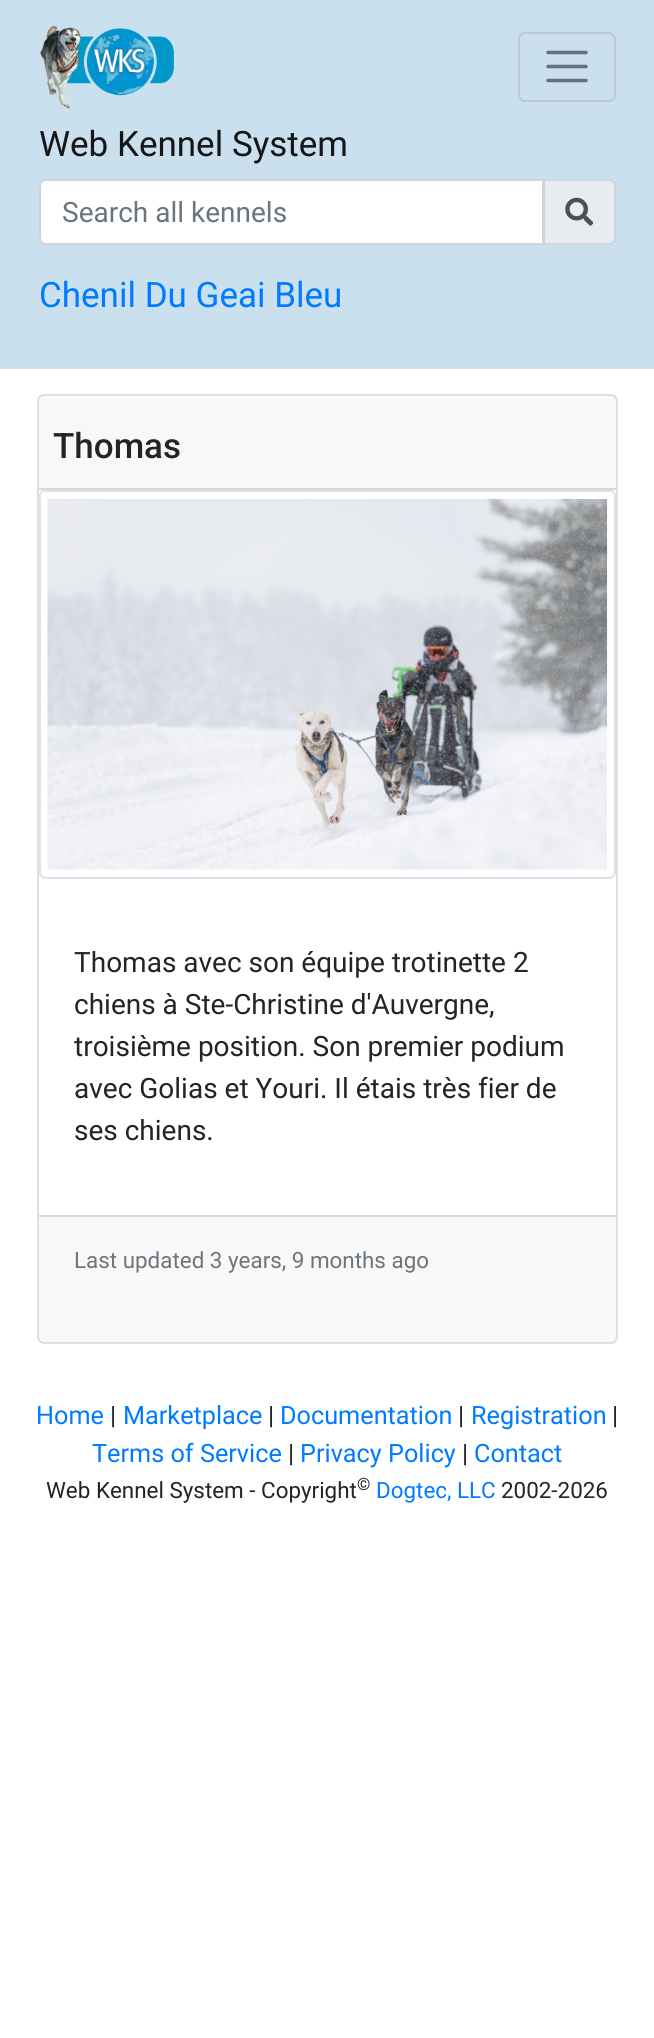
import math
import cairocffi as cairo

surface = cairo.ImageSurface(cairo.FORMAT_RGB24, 654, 2038)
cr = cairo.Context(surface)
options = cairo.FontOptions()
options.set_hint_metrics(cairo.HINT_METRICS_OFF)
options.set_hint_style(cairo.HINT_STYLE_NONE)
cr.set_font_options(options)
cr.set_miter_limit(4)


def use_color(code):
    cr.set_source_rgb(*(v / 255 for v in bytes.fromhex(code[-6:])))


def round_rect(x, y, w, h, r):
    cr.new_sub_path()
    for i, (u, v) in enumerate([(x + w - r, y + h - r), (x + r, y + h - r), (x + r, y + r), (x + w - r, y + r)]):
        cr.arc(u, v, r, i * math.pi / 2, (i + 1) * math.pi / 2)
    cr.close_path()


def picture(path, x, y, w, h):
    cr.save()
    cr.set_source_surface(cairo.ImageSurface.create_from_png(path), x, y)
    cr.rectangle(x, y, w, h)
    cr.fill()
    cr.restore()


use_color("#ffffff")
cr.paint()
use_color("#cbe0ee")
cr.rectangle(0, 0, 654, 369)
cr.fill()
picture("img1.png", 40, 25, 135, 84)
round_rect(519, 33, 96, 68, 6)
use_color("#b7cad6")
cr.stroke()
cr.new_path()
cr.move_to(548, 52.5)
cr.line_to(586, 52.5)
cr.move_to(548, 66.5)
cr.line_to(586, 66.5)
cr.move_to(548, 80.5)
cr.line_to(586, 80.5)
use_color("#667077")
cr.set_line_width(3.5)
cr.set_line_cap(cairo.LINE_CAP_ROUND)
cr.stroke()
cr.select_font_face("Roboto")
cr.set_font_size(35)
use_color("#141618")
cr.move_to(39, 156)
cr.show_text("Web Kennel System")
use_color("#e9ecef")
cr.new_path()
cr.move_to(544, 180)
cr.line_to(609, 180)
cr.curve_to(612.5, 180, 615, 182.5, 615, 186)
cr.line_to(615, 238)
cr.curve_to(615, 241.5, 612.5, 244, 609, 244)
cr.line_to(544, 244)
cr.close_path()
cr.fill_preserve()
use_color("#ced4da")
cr.set_line_width(2)
cr.set_line_cap(cairo.LINE_CAP_BUTT)
cr.stroke()
use_color("#ffffff")
cr.new_path()
cr.move_to(46, 180)
cr.line_to(543, 180)
cr.line_to(543, 244)
cr.line_to(46, 244)
cr.curve_to(42.5, 244, 40, 241.5, 40, 238)
cr.line_to(40, 186)
cr.curve_to(40, 182.5, 42.5, 180, 46, 180)
cr.close_path()
cr.fill_preserve()
use_color("#ced4da")
cr.stroke()
cr.set_font_size(28)
use_color("#6c757d")
cr.move_to(62, 222)
cr.show_text("Search all kennels")
picture("img2.png", 565, 197, 29, 29)
cr.set_font_size(35)
use_color("#007bff")
cr.move_to(39, 307)
cr.show_text("Chenil Du Geai Bleu")
round_rect(38, 395, 579, 948, 6)
use_color("#dfdfdf")
cr.stroke()
cr.set_source_rgba(0, 0, 0, 0.03)
cr.rectangle(39, 396, 577, 92)
cr.fill()
use_color("#d8d8d8")
cr.rectangle(39, 488, 577, 2)
cr.fill()
cr.select_font_face("Roboto Medium")
use_color("#212529")
cr.move_to(53, 458)
cr.show_text("Thomas")
cr.new_path()
cr.move_to(44, 491)
cr.line_to(611, 491)
cr.curve_to(613, 491, 615, 493, 615, 495)
cr.line_to(615, 872)
cr.curve_to(615, 875.5, 612.5, 878, 609, 878)
cr.line_to(46, 878)
cr.curve_to(42.5, 878, 40, 875.5, 40, 872)
cr.line_to(40, 495)
cr.curve_to(40, 493, 42, 491, 44, 491)
cr.close_path()
use_color("#dee2e6")
cr.stroke()
picture("img3.png", 47, 498, 561, 372)
cr.select_font_face("Roboto")
cr.set_font_size(28)
use_color("#212529")
cr.move_to(74, 972)
cr.show_text("Thomas avec son équipe trotinette 2")
cr.move_to(74, 1014)
cr.show_text("chiens à Ste-Christine d'Auvergne,")
cr.move_to(74, 1056)
cr.show_text("troisième position. Son premier podium")
cr.move_to(74, 1098)
cr.show_text("avec Golias et Youri. Il étais très fier de")
cr.move_to(74, 1140)
cr.show_text("ses chiens.")
cr.set_source_rgba(0, 0, 0, 0.03)
cr.rectangle(39, 1217, 577, 125)
cr.fill()
use_color("#d8d8d8")
cr.rectangle(39, 1215, 577, 2)
cr.fill()
cr.set_font_size(22.4)
use_color("#6c757d")
cr.move_to(74, 1268)
cr.show_text("Last updated 3 years, 9 months ago")
cr.set_font_size(25.25)
use_color("#007bff")
cr.move_to(36, 1424)
cr.show_text("Home")
use_color("#212529")
cr.move_to(110, 1424)
cr.show_text("|")
use_color("#007bff")
cr.move_to(123, 1424)
cr.show_text("Marketplace")
use_color("#212529")
cr.move_to(268, 1424)
cr.show_text("|")
use_color("#007bff")
cr.move_to(280, 1424)
cr.show_text("Documentation")
use_color("#212529")
cr.move_to(458, 1424)
cr.show_text("|")
use_color("#007bff")
cr.move_to(471, 1424)
cr.show_text("Registration")
use_color("#212529")
cr.move_to(612, 1424)
cr.show_text("|")
use_color("#007bff")
cr.move_to(92, 1462)
cr.show_text("Terms of Service")
use_color("#212529")
cr.move_to(288, 1462)
cr.show_text("|")
use_color("#007bff")
cr.move_to(300, 1462)
cr.show_text("Privacy Policy")
use_color("#212529")
cr.move_to(462, 1462)
cr.show_text("|")
use_color("#007bff")
cr.move_to(474, 1462)
cr.show_text("Contact")
cr.set_font_size(22.4)
use_color("#212529")
cr.move_to(46, 1498)
cr.show_text("Web Kennel System - Copyright")
cr.set_font_size(17)
cr.move_to(357, 1490)
cr.show_text("©")
cr.set_font_size(22.4)
use_color("#007bff")
cr.move_to(376, 1498)
cr.show_text("Dogtec, LLC")
use_color("#212529")
cr.move_to(501, 1498)
cr.show_text("2002-2026")
surface.write_to_png("result.png")
